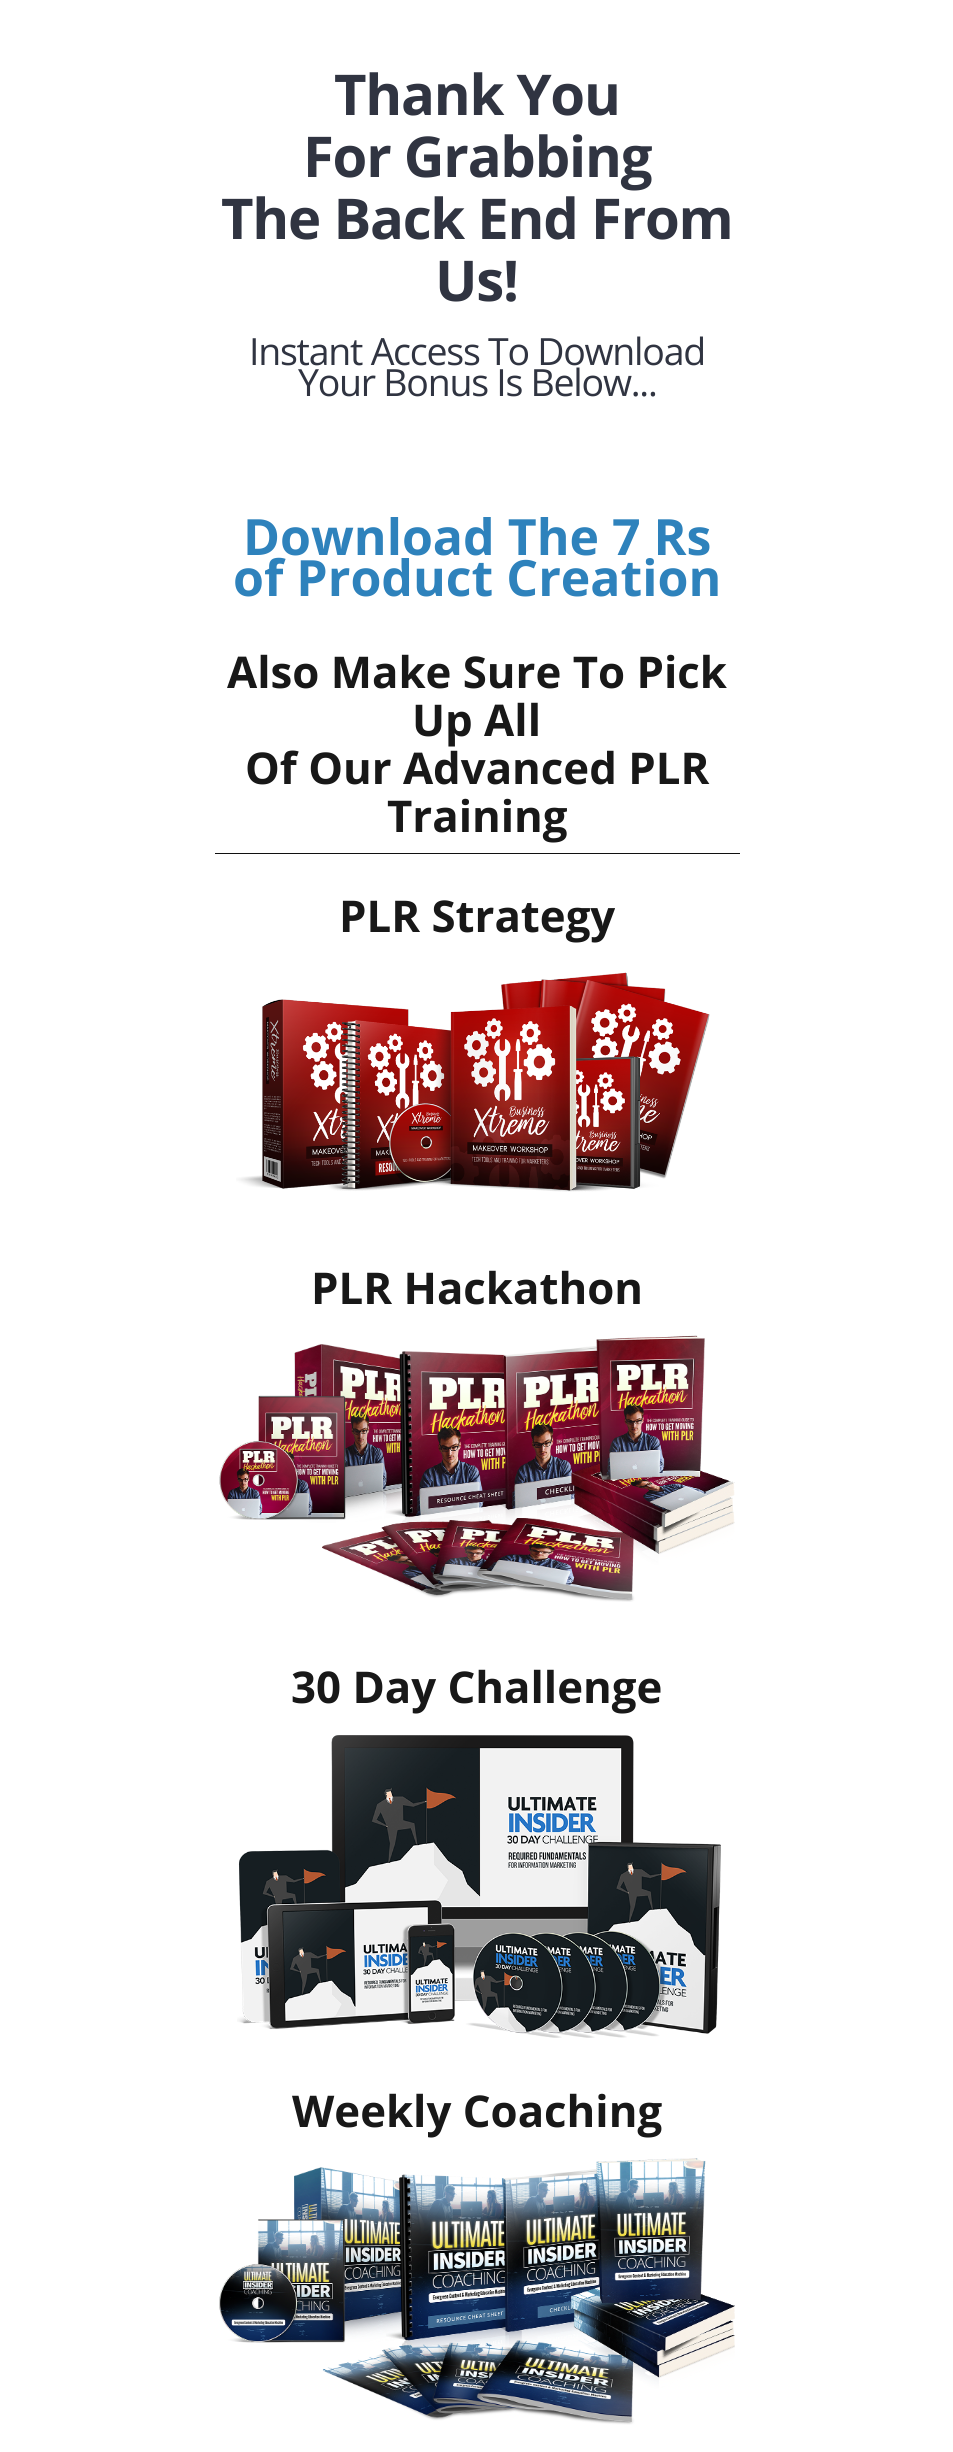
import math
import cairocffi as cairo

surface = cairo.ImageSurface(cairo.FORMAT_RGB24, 953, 2452)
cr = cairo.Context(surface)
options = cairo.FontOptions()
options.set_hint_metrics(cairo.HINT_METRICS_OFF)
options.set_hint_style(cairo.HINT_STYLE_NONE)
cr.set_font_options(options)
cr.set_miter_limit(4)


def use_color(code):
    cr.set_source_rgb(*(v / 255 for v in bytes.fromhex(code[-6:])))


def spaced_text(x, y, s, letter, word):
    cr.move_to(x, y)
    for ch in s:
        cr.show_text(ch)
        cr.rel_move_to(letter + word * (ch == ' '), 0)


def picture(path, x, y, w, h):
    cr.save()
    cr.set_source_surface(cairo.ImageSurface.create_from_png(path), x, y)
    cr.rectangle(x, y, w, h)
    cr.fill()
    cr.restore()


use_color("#ffffff")
cr.paint()
cr.select_font_face("Open Sans", cairo.FONT_SLANT_NORMAL, cairo.FONT_WEIGHT_BOLD)
cr.set_font_size(56.25)
use_color("#303441")
spaced_text(334, 115, "Thank You", -1.25, 0)
spaced_text(303, 177, "For Grabbing", -1.25, 0)
spaced_text(221, 239, "The Back End From", -1.25, 0)
spaced_text(435, 301, "Us!", -1.25, 0)
cr.select_font_face("Open Sans")
cr.set_font_size(37.5)
spaced_text(249, 365, "Instant Access To Download", -1.25, 0)
spaced_text(298, 396, "Your Bonus Is Below...", -1.25, 0)
cr.select_font_face("Open Sans", cairo.FONT_SLANT_NORMAL, cairo.FONT_WEIGHT_BOLD)
cr.set_font_size(50)
use_color("#2e82bc")
cr.move_to(243, 555)
cr.show_text("Download The 7 Rs")
cr.move_to(233, 596)
cr.show_text("of Product Creation")
use_color("#101010")
cr.rectangle(215, 853, 525, 1)
cr.fill()
cr.set_font_size(43.75)
use_color("#181818")
cr.move_to(227, 688)
cr.show_text("Also Make Sure To Pick")
cr.move_to(412, 736)
cr.show_text("Up All")
cr.move_to(245, 784)
cr.show_text("Of Our Advanced PLR")
cr.move_to(387, 832)
cr.show_text("Training")
cr.move_to(339, 932)
cr.show_text("PLR Strategy")
picture("img1.png", 236, 972, 474, 220)
cr.move_to(311, 1304)
cr.show_text("PLR Hackathon")
picture("img2.png", 219, 1335, 516, 267)
cr.move_to(291, 1703)
cr.show_text("30 Day Challenge")
picture("img3.png", 237, 1735, 484, 303)
cr.move_to(292, 2127)
cr.show_text("Weekly Coaching")
picture("img4.png", 219, 2158, 516, 267)
surface.write_to_png("result.png")
